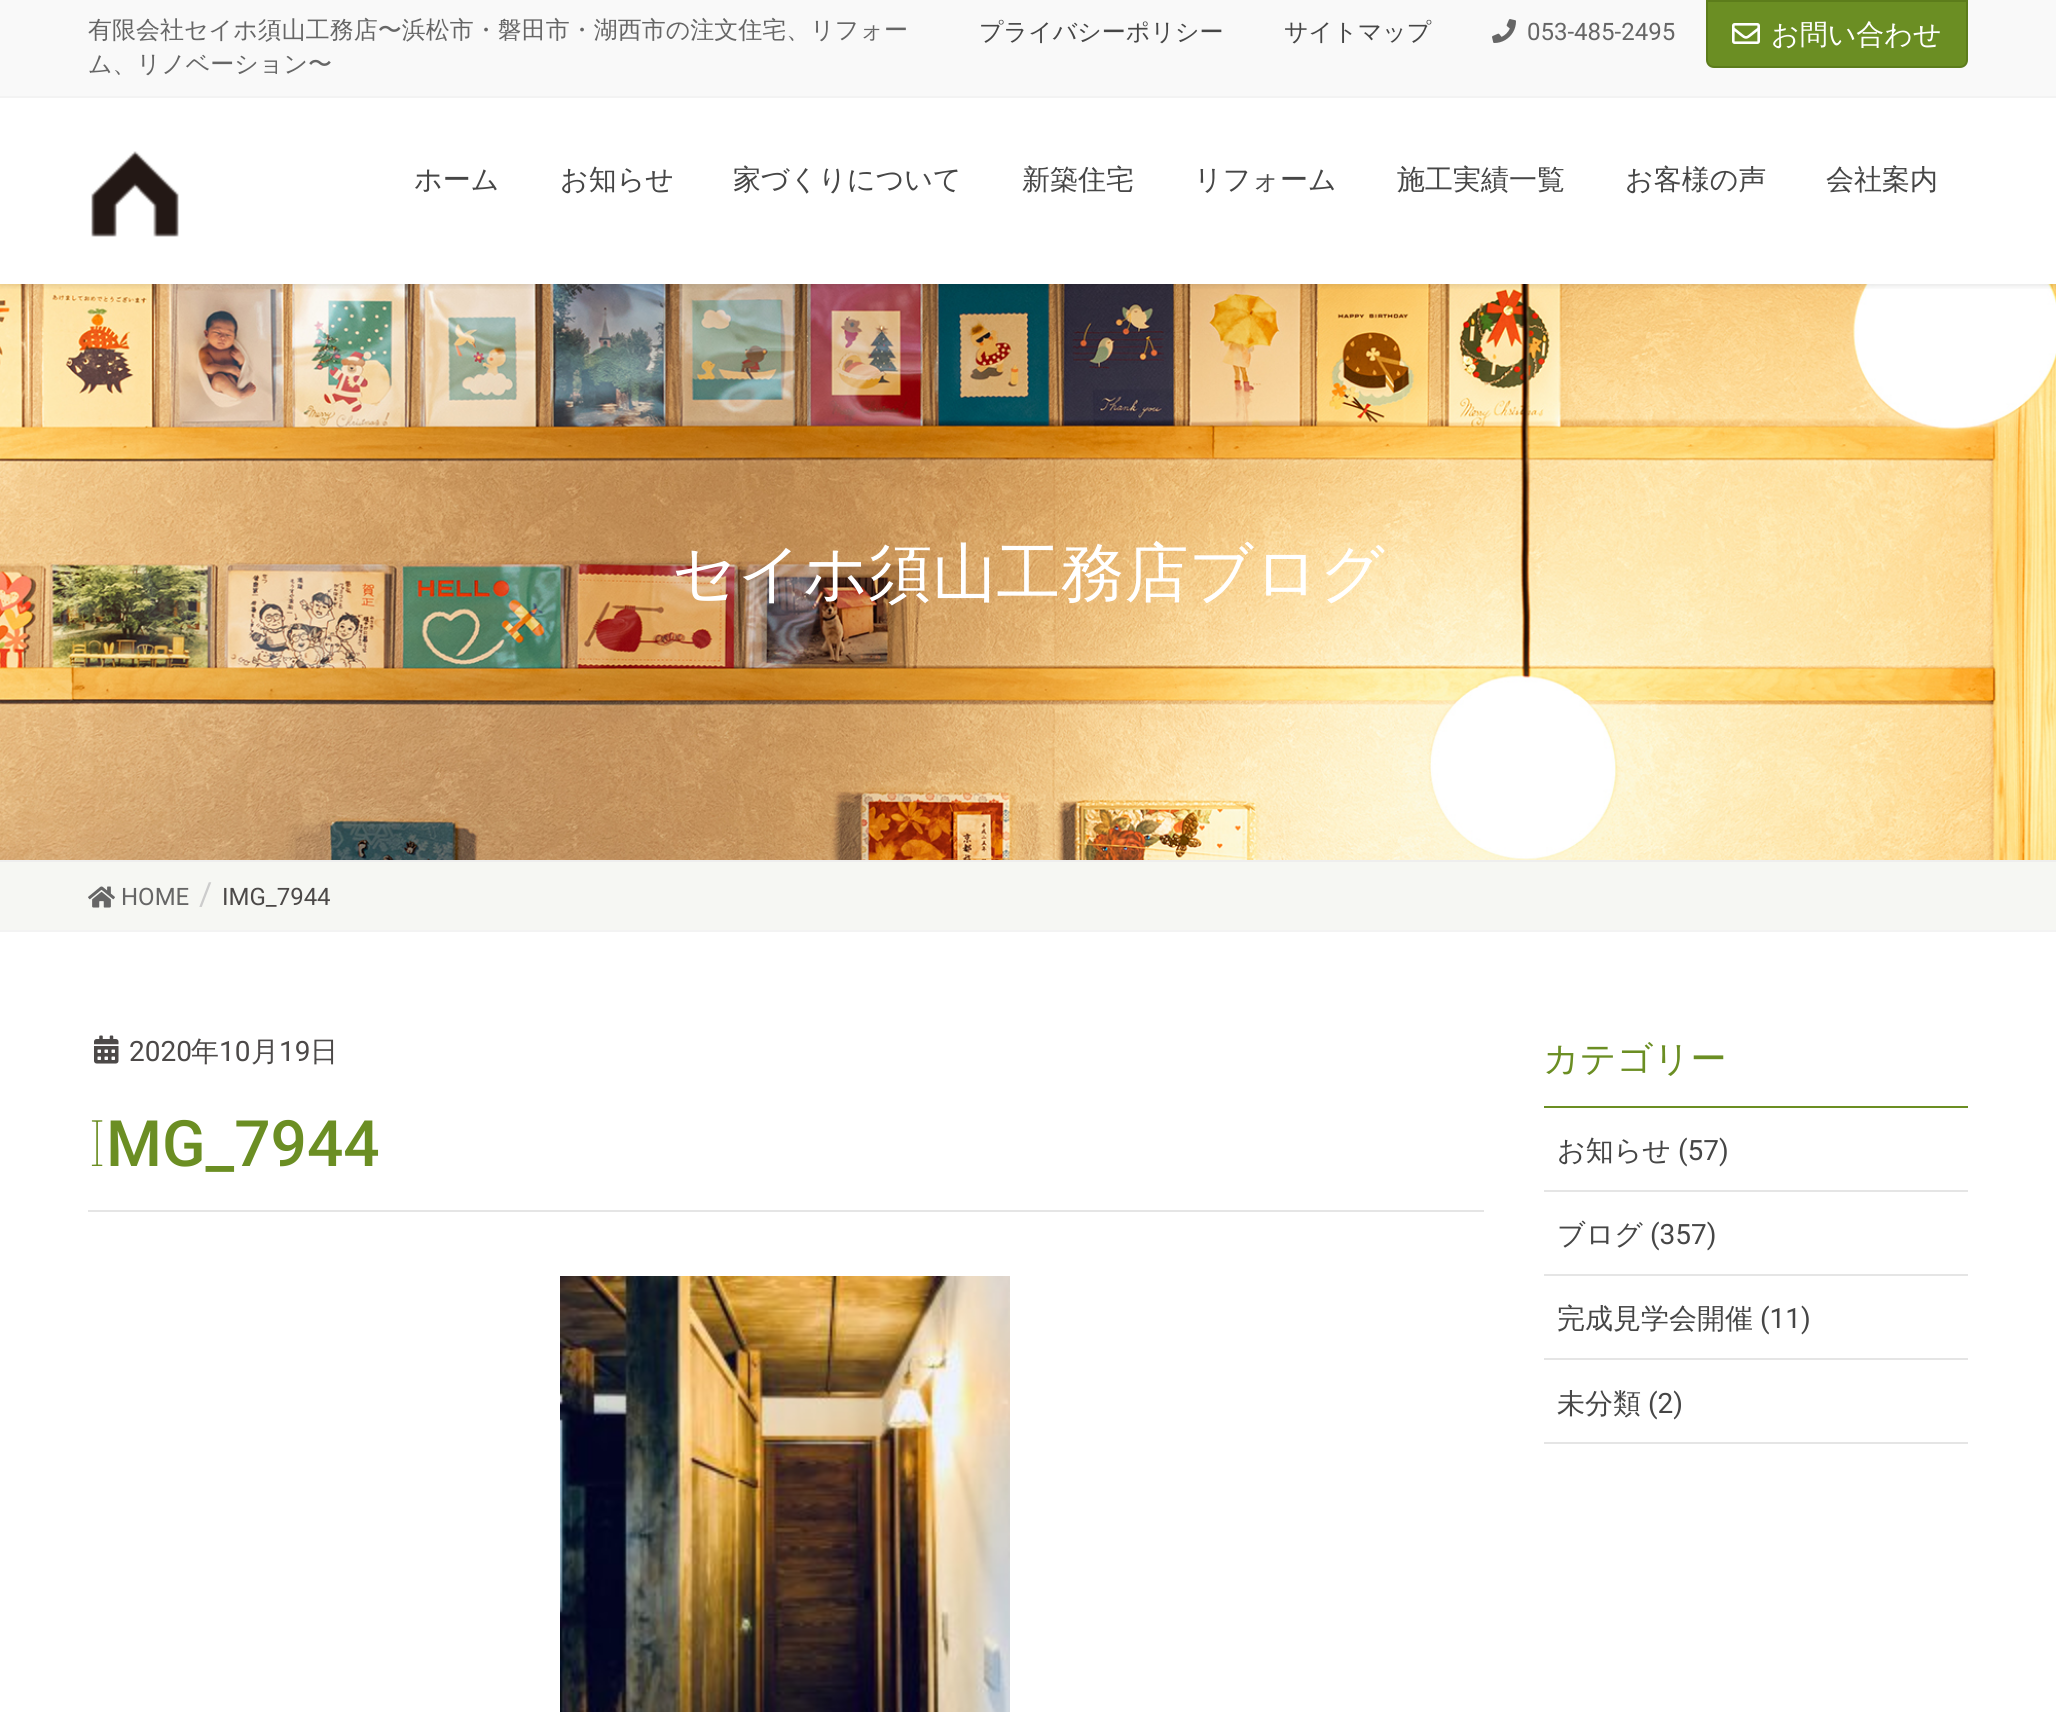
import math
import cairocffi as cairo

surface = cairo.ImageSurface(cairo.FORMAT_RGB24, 2056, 1712)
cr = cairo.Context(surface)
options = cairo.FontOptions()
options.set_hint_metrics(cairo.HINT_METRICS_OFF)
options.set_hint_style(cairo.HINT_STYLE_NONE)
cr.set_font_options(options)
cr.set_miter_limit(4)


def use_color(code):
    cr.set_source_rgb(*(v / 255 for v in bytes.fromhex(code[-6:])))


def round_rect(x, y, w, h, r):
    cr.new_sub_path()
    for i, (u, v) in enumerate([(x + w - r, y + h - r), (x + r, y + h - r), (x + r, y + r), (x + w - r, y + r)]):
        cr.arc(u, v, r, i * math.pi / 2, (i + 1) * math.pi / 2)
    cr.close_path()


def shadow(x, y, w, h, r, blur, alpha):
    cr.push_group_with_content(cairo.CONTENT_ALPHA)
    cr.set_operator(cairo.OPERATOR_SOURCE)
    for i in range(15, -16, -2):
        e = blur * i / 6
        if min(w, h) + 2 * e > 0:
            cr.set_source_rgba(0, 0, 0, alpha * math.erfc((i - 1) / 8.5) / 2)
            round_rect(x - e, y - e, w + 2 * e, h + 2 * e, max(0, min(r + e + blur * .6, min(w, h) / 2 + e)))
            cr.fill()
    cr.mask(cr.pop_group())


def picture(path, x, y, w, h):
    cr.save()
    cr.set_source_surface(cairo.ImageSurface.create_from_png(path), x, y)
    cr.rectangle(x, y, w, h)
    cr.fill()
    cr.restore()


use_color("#ffffff")
cr.paint()
picture("img4.png", 0, 284, 2056, 576)
cr.save()
cr.rectangle(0, 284, 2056, 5)
cr.clip()
use_color("#000000")
shadow(0, 2, 2056, 284, 0, 3, 0.1)
cr.restore()
use_color("#f9f9f9")
cr.rectangle(0, 0, 2056, 96)
cr.fill()
use_color("#f3f3f3")
cr.rectangle(0, 96, 2056, 2)
cr.fill()
cr.select_font_face("WenQuanYi Zen Hei Medium")
cr.set_font_size(24)
use_color("#666666")
cr.move_to(88, 38)
cr.show_text("有限会社セイホ須山工務店〜浜松市・磐田市・湖西市の注文住宅、リフォー")
cr.move_to(88, 72)
cr.show_text("ム、リノベーション〜")
use_color("#464646")
cr.move_to(979, 40)
cr.show_text("プライバシーポリシー")
cr.move_to(1284, 40)
cr.show_text("サイトマップ")
picture("img1.png", 1492, 19, 24, 24)
cr.select_font_face("Roboto")
use_color("#666666")
cr.move_to(1527, 40)
cr.show_text("053-485-2495")
use_color("#6b8e23")
cr.new_path()
cr.move_to(1707, 1)
cr.line_to(1967, 1)
cr.line_to(1967, 60)
cr.curve_to(1967, 64, 1964, 67, 1960, 67)
cr.line_to(1714, 67)
cr.curve_to(1710, 67, 1707, 64, 1707, 60)
cr.close_path()
cr.fill_preserve()
use_color("#5c7c1b")
cr.stroke()
picture("img2.png", 1732, 23, 28, 21)
cr.select_font_face("WenQuanYi Zen Hei Medium")
cr.set_font_size(28)
use_color("#ffffff")
cr.move_to(1771, 44)
cr.show_text("お問い合わせ")
picture("img3.png", 91, 151, 88, 86)
use_color("#464646")
cr.move_to(414, 189)
cr.show_text("ホーム")
cr.move_to(560, 189)
cr.show_text("お知らせ")
cr.move_to(733, 189)
cr.show_text("家づくりについて")
cr.move_to(1022, 189)
cr.show_text("新築住宅")
cr.move_to(1194, 189)
cr.show_text("リフォーム")
cr.move_to(1397, 189)
cr.show_text("施工実績一覧")
cr.move_to(1625, 189)
cr.show_text("お客様の声")
cr.move_to(1826, 189)
cr.show_text("会社案内")
use_color("#eeeeee")
cr.rectangle(0, 860, 2056, 2)
cr.fill()
cr.set_font_size(64)
use_color("#ffffff")
cr.move_to(672, 595)
cr.show_text("セイホ須山工務店ブログ")
use_color("#f6f7f3")
cr.rectangle(0, 862, 2056, 68)
cr.fill()
use_color("#f3f3f3")
cr.rectangle(0, 930, 2056, 2)
cr.fill()
picture("img5.png", 88, 886, 27, 22)
cr.select_font_face("Roboto")
cr.set_font_size(24)
use_color("#666666")
cr.move_to(121, 905)
cr.show_text("HOME")
cr.set_font_size(32)
use_color("#cccccc")
cr.move_to(199, 905)
cr.show_text("/")
cr.set_font_size(24)
use_color("#4c4948")
cr.move_to(222, 905)
cr.show_text("IMG_7944")
use_color("#e5e5e5")
cr.rectangle(88, 1210, 1396, 2)
cr.fill()
picture("img6.png", 94, 1035, 25, 29)
cr.set_font_size(28)
use_color("#4c4948")
cr.move_to(129, 1061)
cr.show_text("2020")
cr.select_font_face("WenQuanYi Zen Hei Medium")
cr.move_to(191, 1061)
cr.show_text("年")
cr.select_font_face("Roboto")
cr.move_to(219, 1061)
cr.show_text("10")
cr.select_font_face("WenQuanYi Zen Hei Medium")
cr.move_to(251, 1061)
cr.show_text("月")
cr.select_font_face("Roboto")
cr.move_to(279, 1061)
cr.show_text("19")
cr.select_font_face("WenQuanYi Zen Hei Medium")
cr.move_to(310, 1061)
cr.show_text("日")
cr.select_font_face("Noto Sans Thin")
cr.set_font_size(64)
use_color("#6b8e23")
cr.move_to(88, 1166)
cr.show_text("I")
cr.select_font_face("Roboto Medium")
cr.move_to(106, 1166)
cr.show_text("MG_7944")
picture("img7.png", 560, 1276, 450, 436)
cr.rectangle(1544, 1106, 424, 2)
cr.fill()
cr.select_font_face("WenQuanYi Zen Hei Medium")
cr.set_font_size(36)
cr.move_to(1543, 1071)
cr.show_text("カテゴリー")
use_color("#e5e5e5")
cr.rectangle(1544, 1190, 424, 2)
cr.fill()
cr.set_font_size(28)
use_color("#464646")
cr.move_to(1557, 1160)
cr.show_text("お知らせ")
cr.select_font_face("Roboto")
cr.move_to(1678, 1160)
cr.show_text("(57)")
use_color("#e5e5e5")
cr.rectangle(1544, 1274, 424, 2)
cr.fill()
cr.select_font_face("WenQuanYi Zen Hei Medium")
use_color("#464646")
cr.move_to(1557, 1244)
cr.show_text("ブログ")
cr.select_font_face("Roboto")
cr.move_to(1650, 1244)
cr.show_text("(357)")
use_color("#e5e5e5")
cr.rectangle(1544, 1358, 424, 2)
cr.fill()
cr.select_font_face("WenQuanYi Zen Hei Medium")
use_color("#464646")
cr.move_to(1557, 1328)
cr.show_text("完成見学会開催")
cr.select_font_face("Roboto")
cr.move_to(1760, 1328)
cr.show_text("(11)")
use_color("#e5e5e5")
cr.rectangle(1544, 1442, 424, 2)
cr.fill()
cr.select_font_face("WenQuanYi Zen Hei Medium")
use_color("#464646")
cr.move_to(1557, 1413)
cr.show_text("未分類")
cr.select_font_face("Roboto")
cr.move_to(1648, 1413)
cr.show_text("(2)")
surface.write_to_png("result.png")
